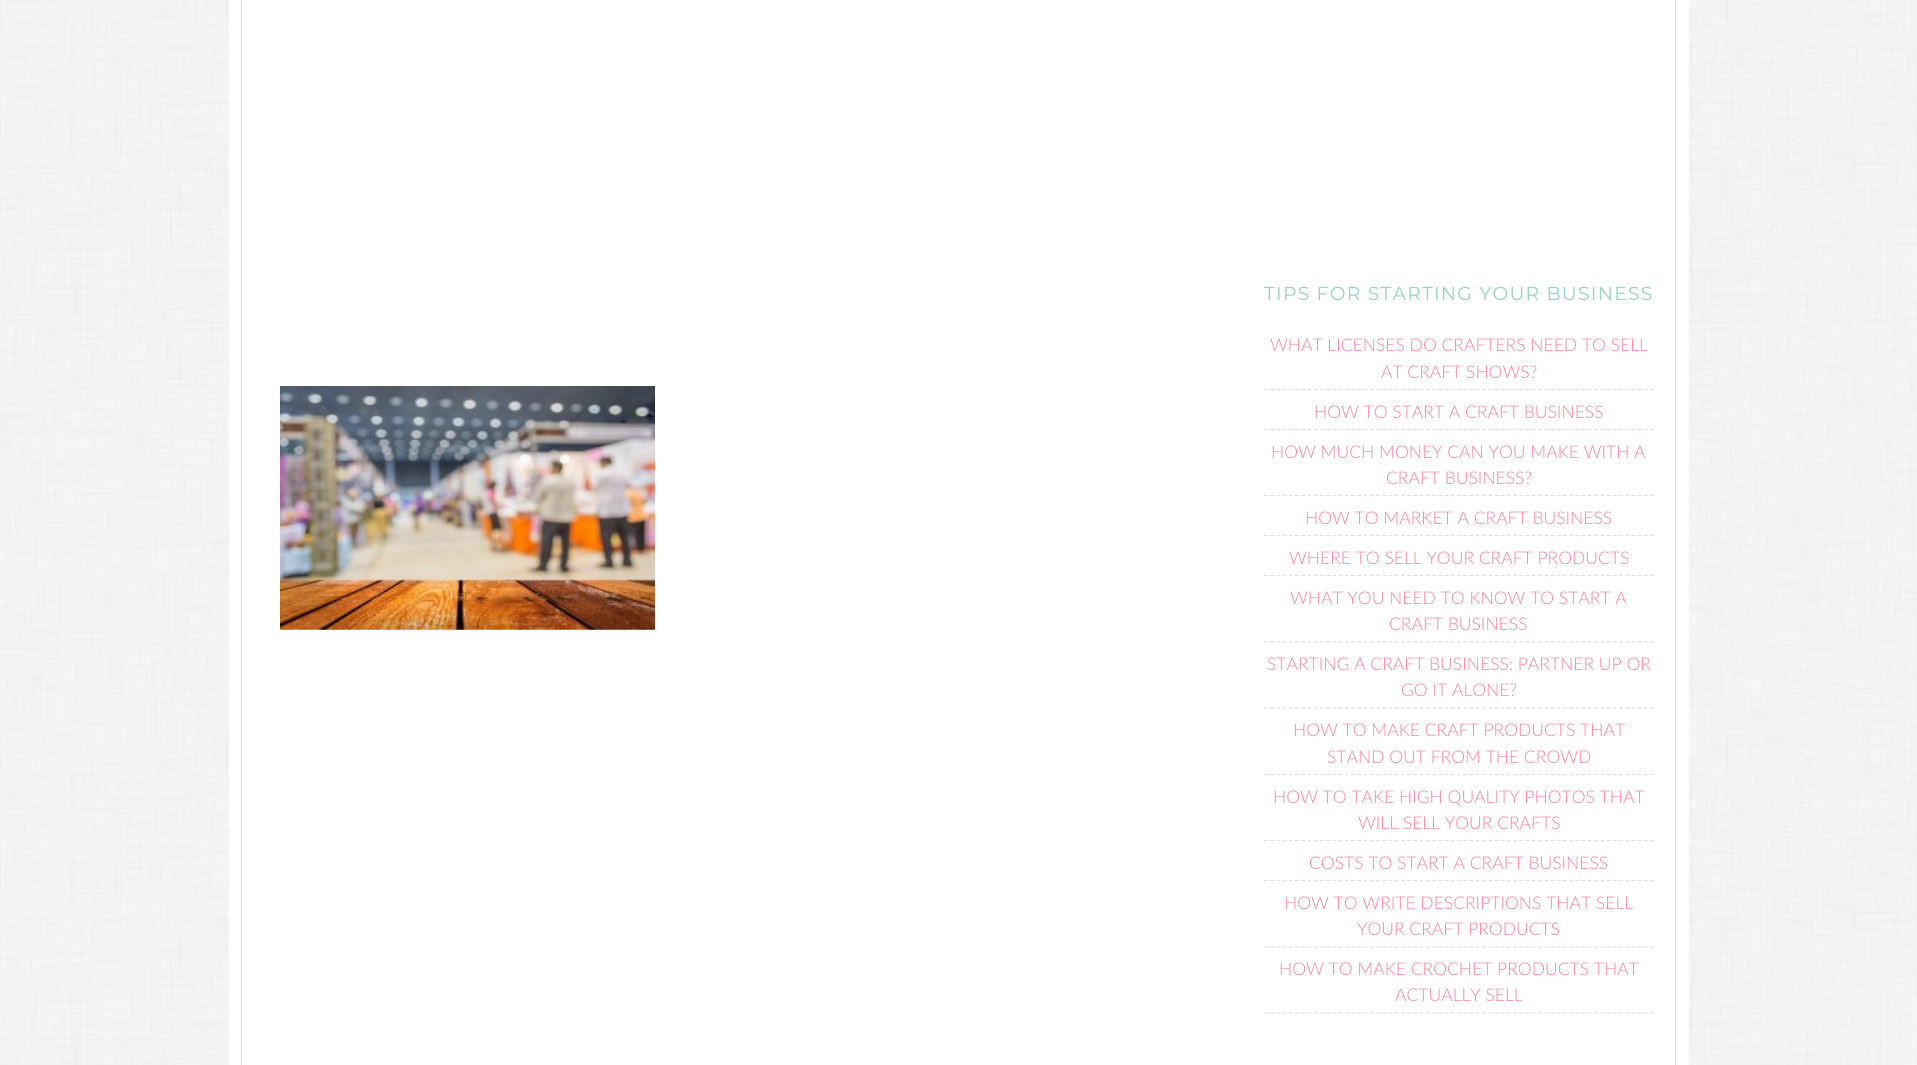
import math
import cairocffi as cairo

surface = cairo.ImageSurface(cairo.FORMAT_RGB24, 1917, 1065)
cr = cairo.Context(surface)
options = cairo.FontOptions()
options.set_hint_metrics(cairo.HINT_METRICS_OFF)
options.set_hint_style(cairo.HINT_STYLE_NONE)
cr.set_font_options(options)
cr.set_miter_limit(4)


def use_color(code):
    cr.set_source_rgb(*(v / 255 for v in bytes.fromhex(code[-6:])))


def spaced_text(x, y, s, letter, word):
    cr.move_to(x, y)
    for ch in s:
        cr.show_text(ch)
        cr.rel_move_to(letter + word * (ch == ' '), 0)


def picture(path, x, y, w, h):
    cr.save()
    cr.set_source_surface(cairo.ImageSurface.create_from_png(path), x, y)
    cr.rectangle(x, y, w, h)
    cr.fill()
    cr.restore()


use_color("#ffffff")
cr.paint()
picture("img1.png", 0, 0, 1917, 1065)
use_color("#ffffff")
cr.rectangle(229, 0, 1460, 1065)
cr.fill()
use_color("#dddddd")
cr.set_fill_rule(cairo.FILL_RULE_EVEN_ODD)
cr.new_path()
cr.move_to(241, -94)
cr.line_to(1676, -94)
cr.line_to(1676, 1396)
cr.curve_to(1676, 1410, 1665, 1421, 1651, 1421)
cr.line_to(266, 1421)
cr.curve_to(252, 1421, 241, 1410, 241, 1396)
cr.close_path()
cr.move_to(242, -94)
cr.line_to(1675, -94)
cr.line_to(1675, 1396)
cr.curve_to(1675, 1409, 1664, 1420, 1651, 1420)
cr.line_to(266, 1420)
cr.curve_to(253, 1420, 242, 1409, 242, 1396)
cr.close_path()
cr.fill()
picture("img2.png", 280, 386, 375, 244)
cr.select_font_face("Montserrat")
cr.set_font_size(18.75)
use_color("#95d4c3")
spaced_text(1264, 300, "TIPS FOR STARTING YOUR BUSINESS", 1.25, 0)
cr.new_path()
cr.move_to(1264, 389.5)
cr.line_to(1654, 389.5)
use_color("#dddddd")
cr.set_line_width(1.2)
cr.set_dash([3.75, 2.48])
cr.stroke()
cr.select_font_face("Lato Light")
cr.set_font_size(17.5)
use_color("#fe8497")
cr.move_to(1270, 351)
cr.show_text("WHAT LICENSES DO CRAFTERS NEED TO SELL")
cr.move_to(1381, 378)
cr.show_text("AT CRAFT SHOWS?")
cr.new_path()
cr.move_to(1264, 429.5)
cr.line_to(1654, 429.5)
use_color("#dddddd")
cr.stroke()
use_color("#fe8497")
cr.move_to(1314, 418)
cr.show_text("HOW TO START A CRAFT BUSINESS")
cr.new_path()
cr.move_to(1264, 495.5)
cr.line_to(1654, 495.5)
use_color("#dddddd")
cr.stroke()
use_color("#fe8497")
cr.move_to(1271, 458)
cr.show_text("HOW MUCH MONEY CAN YOU MAKE WITH A")
cr.move_to(1386, 484)
cr.show_text("CRAFT BUSINESS?")
cr.new_path()
cr.move_to(1264, 535.5)
cr.line_to(1654, 535.5)
use_color("#dddddd")
cr.stroke()
use_color("#fe8497")
cr.move_to(1305, 524)
cr.show_text("HOW TO MARKET A CRAFT BUSINESS")
cr.new_path()
cr.move_to(1264, 575.5)
cr.line_to(1654, 575.5)
use_color("#dddddd")
cr.stroke()
use_color("#fe8497")
cr.move_to(1289, 564)
cr.show_text("WHERE TO SELL YOUR CRAFT PRODUCTS")
cr.new_path()
cr.move_to(1264, 642)
cr.line_to(1654, 642)
use_color("#dddddd")
cr.stroke()
use_color("#fe8497")
cr.move_to(1290, 604)
cr.show_text("WHAT YOU NEED TO KNOW TO START A")
cr.move_to(1389, 630)
cr.show_text("CRAFT BUSINESS")
cr.new_path()
cr.move_to(1264, 708)
cr.line_to(1654, 708)
use_color("#dddddd")
cr.stroke()
use_color("#fe8497")
cr.move_to(1267, 670)
cr.show_text("STARTING A CRAFT BUSINESS: PARTNER UP OR")
cr.move_to(1401, 696)
cr.show_text("GO IT ALONE?")
cr.new_path()
cr.move_to(1264, 774.5)
cr.line_to(1654, 774.5)
use_color("#dddddd")
cr.stroke()
use_color("#fe8497")
cr.move_to(1293, 736)
cr.show_text("HOW TO MAKE CRAFT PRODUCTS THAT")
cr.move_to(1327, 763)
cr.show_text("STAND OUT FROM THE CROWD")
cr.new_path()
cr.move_to(1264, 840.5)
cr.line_to(1654, 840.5)
use_color("#dddddd")
cr.stroke()
use_color("#fe8497")
cr.move_to(1273, 803)
cr.show_text("HOW TO TAKE HIGH QUALITY PHOTOS THAT")
cr.move_to(1358, 829)
cr.show_text("WILL SELL YOUR CRAFTS")
cr.new_path()
cr.move_to(1264, 880.5)
cr.line_to(1654, 880.5)
use_color("#dddddd")
cr.stroke()
use_color("#fe8497")
cr.move_to(1309, 869)
cr.show_text("COSTS TO START A CRAFT BUSINESS")
cr.new_path()
cr.move_to(1264, 947)
cr.line_to(1654, 947)
use_color("#dddddd")
cr.stroke()
use_color("#fe8497")
cr.move_to(1284, 909)
cr.show_text("HOW TO WRITE DESCRIPTIONS THAT SELL")
cr.move_to(1357, 935)
cr.show_text("YOUR CRAFT PRODUCTS")
cr.new_path()
cr.move_to(1264, 1013)
cr.line_to(1654, 1013)
use_color("#dddddd")
cr.stroke()
use_color("#fe8497")
cr.move_to(1279, 975)
cr.show_text("HOW TO MAKE CROCHET PRODUCTS THAT")
cr.move_to(1395, 1001)
cr.show_text("ACTUALLY SELL")
surface.write_to_png("result.png")
